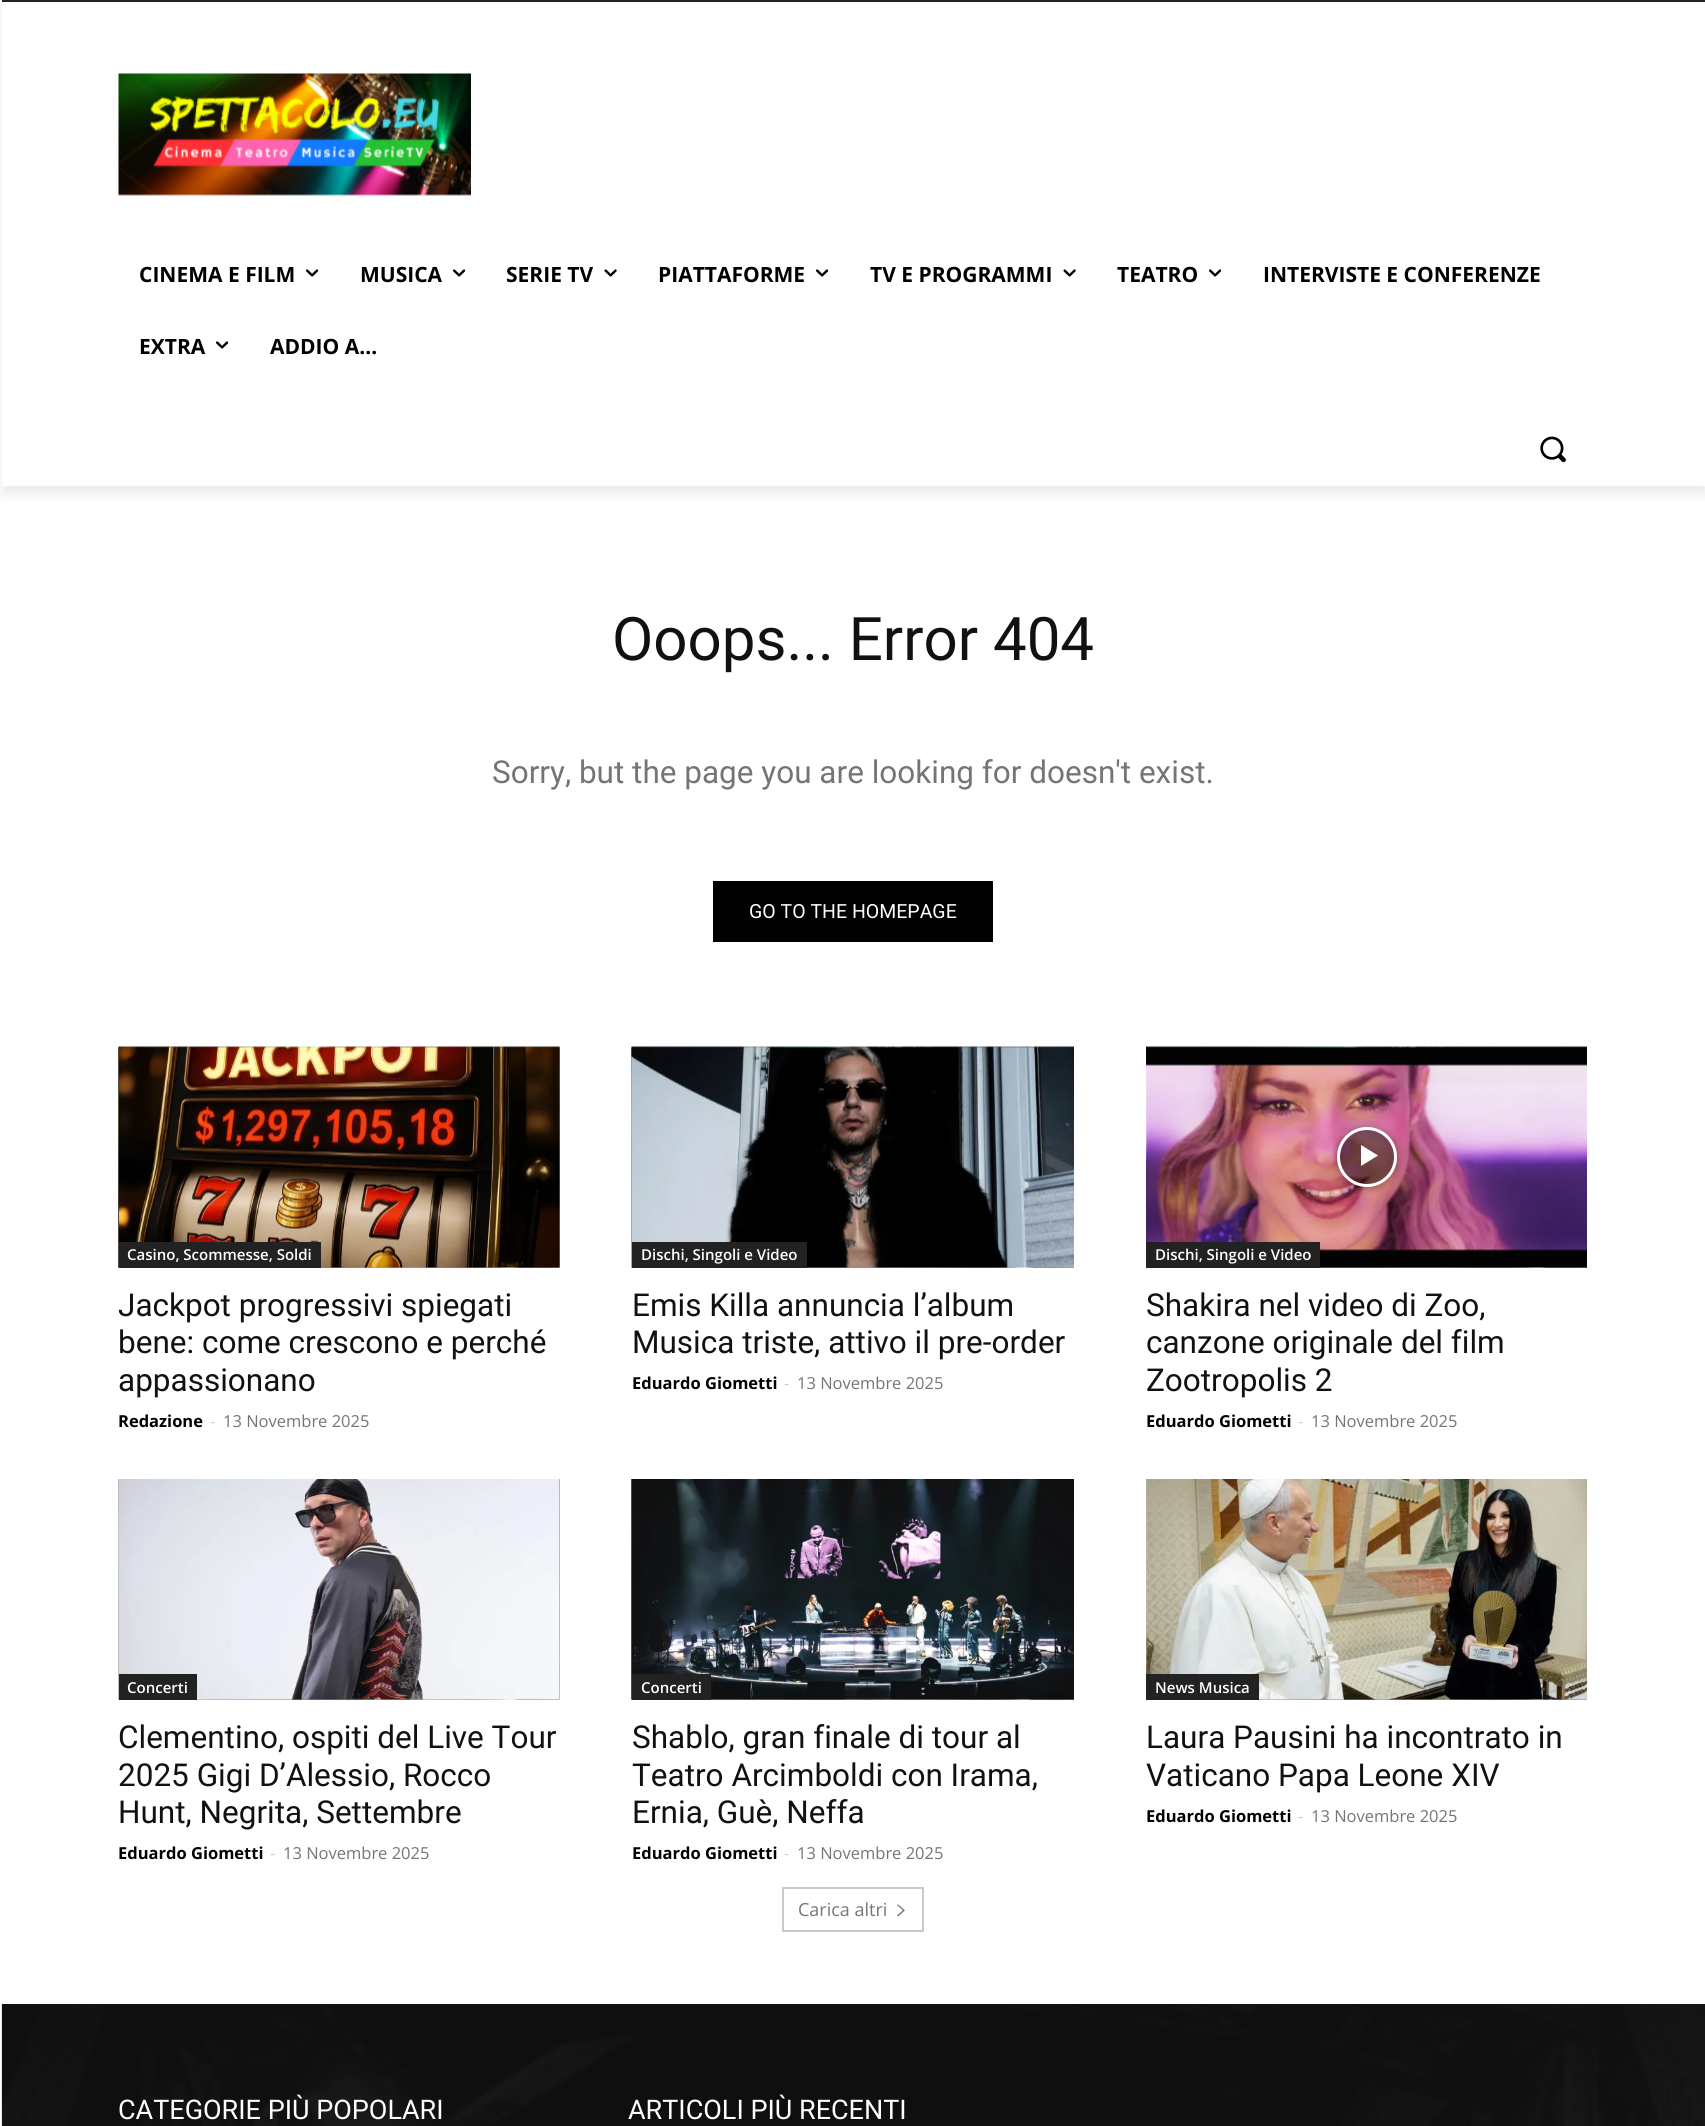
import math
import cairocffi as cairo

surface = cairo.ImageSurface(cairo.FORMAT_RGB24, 1705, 2126)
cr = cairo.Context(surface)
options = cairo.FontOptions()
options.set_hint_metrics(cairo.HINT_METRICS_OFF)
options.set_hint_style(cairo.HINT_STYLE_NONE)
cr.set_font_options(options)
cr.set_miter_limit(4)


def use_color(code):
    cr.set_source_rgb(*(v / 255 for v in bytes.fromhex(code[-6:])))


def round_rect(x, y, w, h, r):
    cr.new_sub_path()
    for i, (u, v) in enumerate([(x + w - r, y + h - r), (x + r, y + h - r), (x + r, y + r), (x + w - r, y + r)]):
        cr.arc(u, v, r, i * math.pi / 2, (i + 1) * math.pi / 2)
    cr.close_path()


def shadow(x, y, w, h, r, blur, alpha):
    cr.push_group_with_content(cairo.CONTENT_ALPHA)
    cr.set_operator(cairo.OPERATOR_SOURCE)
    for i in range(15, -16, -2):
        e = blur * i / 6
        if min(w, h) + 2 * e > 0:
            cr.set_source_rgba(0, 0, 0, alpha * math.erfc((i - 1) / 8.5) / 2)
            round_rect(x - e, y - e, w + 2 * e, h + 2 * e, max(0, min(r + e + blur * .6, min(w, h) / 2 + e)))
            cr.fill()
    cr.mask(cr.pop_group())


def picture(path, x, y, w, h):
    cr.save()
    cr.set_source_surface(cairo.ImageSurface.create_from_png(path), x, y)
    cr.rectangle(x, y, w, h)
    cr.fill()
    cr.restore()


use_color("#ffffff")
cr.paint()
use_color("#222222")
cr.rectangle(2, 0, 1703, 2)
cr.fill()
picture("img1.png", 118, 73, 353, 123)
cr.save()
cr.set_fill_rule(cairo.FILL_RULE_EVEN_ODD)
cr.new_path()
cr.move_to(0, 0)
cr.line_to(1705, 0)
cr.line_to(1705, 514)
cr.line_to(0, 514)
cr.close_path()
cr.move_to(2, 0)
cr.line_to(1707, 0)
cr.line_to(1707, 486)
cr.line_to(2, 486)
cr.close_path()
cr.clip()
use_color("#000000")
shadow(2, 9, 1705, 486, 0, 6, 0.08)
cr.restore()
cr.select_font_face("Open Sans", cairo.FONT_SLANT_NORMAL, cairo.FONT_WEIGHT_BOLD)
cr.set_font_size(21)
use_color("#000000")
cr.move_to(139, 282)
cr.show_text("CINEMA E FILM")
picture("img2.png", 306, 269, 13, 8)
cr.move_to(360, 282)
cr.show_text("MUSICA")
picture("img2.png", 453, 269, 13, 8)
cr.move_to(506, 282)
cr.show_text("SERIE TV")
picture("img3.png", 604, 269, 13, 8)
cr.move_to(658, 282)
cr.show_text("PIATTAFORME")
picture("img2.png", 816, 269, 13, 8)
cr.move_to(870, 282)
cr.show_text("TV E PROGRAMMI")
picture("img3.png", 1063, 269, 13, 8)
cr.move_to(1117, 282)
cr.show_text("TEATRO")
picture("img2.png", 1209, 269, 13, 8)
cr.move_to(1263, 282)
cr.show_text("INTERVISTE E CONFERENZE")
cr.move_to(139, 354)
cr.show_text("EXTRA")
picture("img2.png", 216, 341, 13, 8)
cr.move_to(270, 354)
cr.show_text("ADDIO A…")
picture("img4.png", 1540, 436, 26, 27)
cr.select_font_face("Roboto")
cr.set_font_size(60)
use_color("#111111")
cr.move_to(612, 660)
cr.show_text("Ooops... Error 404")
cr.set_font_size(31.5)
use_color("#757575")
cr.move_to(492, 783)
cr.show_text("Sorry, but the page you are looking for doesn't exist.")
use_color("#000000")
cr.rectangle(713, 881, 280, 61)
cr.fill()
cr.set_font_size(19.5)
use_color("#ffffff")
cr.move_to(749, 918)
cr.show_text("GO TO THE HOMEPAGE")
picture("img5.png", 118, 1046, 442, 222)
picture("img6.png", 118, 1046, 442, 222)
use_color("#222222")
cr.rectangle(119, 1242, 202, 26)
cr.fill()
cr.select_font_face("Open Sans SemiBold")
cr.set_font_size(15)
use_color("#ffffff")
cr.move_to(127, 1260)
cr.show_text("Casino, Scommesse, Soldi")
cr.select_font_face("Roboto")
cr.set_font_size(31.5)
use_color("#111111")
cr.move_to(118, 1316)
cr.show_text("Jackpot progressivi spiegati")
cr.move_to(118, 1353)
cr.show_text("bene: come crescono e perché")
cr.move_to(118, 1391)
cr.show_text("appassionano")
cr.select_font_face("Open Sans", cairo.FONT_SLANT_NORMAL, cairo.FONT_WEIGHT_BOLD)
cr.set_font_size(16.5)
use_color("#000000")
cr.move_to(118, 1427)
cr.show_text("Redazione")
cr.select_font_face("Open Sans")
use_color("#cccccc")
cr.move_to(210, 1427)
cr.show_text("-")
use_color("#757575")
cr.move_to(223, 1427)
cr.show_text("13 Novembre 2025")
picture("img7.png", 631, 1046, 443, 222)
picture("img8.png", 631, 1046, 443, 222)
use_color("#222222")
cr.rectangle(632, 1242, 175, 26)
cr.fill()
cr.select_font_face("Open Sans SemiBold")
cr.set_font_size(15)
use_color("#ffffff")
cr.move_to(641, 1260)
cr.show_text("Dischi, Singoli e Video")
cr.select_font_face("Roboto")
cr.set_font_size(31.5)
use_color("#111111")
cr.move_to(632, 1316)
cr.show_text("Emis Killa annuncia l’album")
cr.move_to(632, 1353)
cr.show_text("Musica triste, attivo il pre-order")
cr.select_font_face("Open Sans", cairo.FONT_SLANT_NORMAL, cairo.FONT_WEIGHT_BOLD)
cr.set_font_size(16.5)
use_color("#000000")
cr.move_to(632, 1389)
cr.show_text("Eduardo Giometti")
cr.select_font_face("Open Sans")
use_color("#cccccc")
cr.move_to(784, 1389)
cr.show_text("-")
use_color("#757575")
cr.move_to(797, 1389)
cr.show_text("13 Novembre 2025")
picture("img9.png", 1146, 1046, 441, 222)
picture("img10.png", 1146, 1046, 441, 222)
cr.save()
cr.set_fill_rule(cairo.FILL_RULE_EVEN_ODD)
cr.new_path()
cr.move_to(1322, 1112)
cr.line_to(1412, 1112)
cr.line_to(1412, 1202)
cr.line_to(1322, 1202)
cr.close_path()
cr.move_to(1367, 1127)
cr.curve_to(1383.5, 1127, 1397, 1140.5, 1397, 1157)
cr.curve_to(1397, 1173.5, 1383.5, 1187, 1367, 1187)
cr.curve_to(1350.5, 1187, 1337, 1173.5, 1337, 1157)
cr.curve_to(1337, 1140.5, 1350.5, 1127, 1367, 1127)
cr.close_path()
cr.clip()
use_color("#000000")
shadow(1337, 1127, 60, 60, 30, 4.5, 0.4)
cr.restore()
cr.set_source_rgba(0, 0, 0, 0.48)
cr.arc(1367, 1157, 28.5, 0, 2 * math.pi)
cr.fill_preserve()
use_color("#ffffff")
cr.set_line_width(3)
cr.stroke()
cr.new_path()
cr.move_to(1361, 1145)
cr.line_to(1361, 1166)
cr.line_to(1378, 1155.5)
cr.close_path()
cr.fill()
use_color("#222222")
cr.rectangle(1146, 1242, 174, 26)
cr.fill()
cr.select_font_face("Open Sans SemiBold")
cr.set_font_size(15)
use_color("#ffffff")
cr.move_to(1155, 1260)
cr.show_text("Dischi, Singoli e Video")
cr.select_font_face("Roboto")
cr.set_font_size(31.5)
use_color("#111111")
cr.move_to(1146, 1316)
cr.show_text("Shakira nel video di Zoo,")
cr.move_to(1146, 1353)
cr.show_text("canzone originale del film")
cr.move_to(1146, 1391)
cr.show_text("Zootropolis 2")
cr.select_font_face("Open Sans", cairo.FONT_SLANT_NORMAL, cairo.FONT_WEIGHT_BOLD)
cr.set_font_size(16.5)
use_color("#000000")
cr.move_to(1146, 1427)
cr.show_text("Eduardo Giometti")
cr.select_font_face("Open Sans")
use_color("#cccccc")
cr.move_to(1298, 1427)
cr.show_text("-")
use_color("#757575")
cr.move_to(1311, 1427)
cr.show_text("13 Novembre 2025")
picture("img11.png", 118, 1479, 442, 221)
picture("img12.png", 118, 1479, 442, 221)
use_color("#222222")
cr.rectangle(119, 1674, 78, 26)
cr.fill()
cr.select_font_face("Open Sans SemiBold")
cr.set_font_size(15)
use_color("#ffffff")
cr.move_to(127, 1693)
cr.show_text("Concerti")
cr.select_font_face("Roboto")
cr.set_font_size(31.5)
use_color("#111111")
cr.move_to(118, 1748)
cr.show_text("Clementino, ospiti del Live Tour")
cr.move_to(118, 1786)
cr.show_text("2025 Gigi D’Alessio, Rocco")
cr.move_to(118, 1823)
cr.show_text("Hunt, Negrita, Settembre")
cr.select_font_face("Open Sans", cairo.FONT_SLANT_NORMAL, cairo.FONT_WEIGHT_BOLD)
cr.set_font_size(16.5)
use_color("#000000")
cr.move_to(118, 1859)
cr.show_text("Eduardo Giometti")
cr.select_font_face("Open Sans")
use_color("#cccccc")
cr.move_to(270, 1859)
cr.show_text("-")
use_color("#757575")
cr.move_to(283, 1859)
cr.show_text("13 Novembre 2025")
picture("img13.png", 631, 1479, 443, 221)
picture("img14.png", 631, 1479, 443, 221)
use_color("#222222")
cr.rectangle(632, 1674, 79, 26)
cr.fill()
cr.select_font_face("Open Sans SemiBold")
cr.set_font_size(15)
use_color("#ffffff")
cr.move_to(641, 1693)
cr.show_text("Concerti")
cr.select_font_face("Roboto")
cr.set_font_size(31.5)
use_color("#111111")
cr.move_to(632, 1748)
cr.show_text("Shablo, gran finale di tour al")
cr.move_to(632, 1786)
cr.show_text("Teatro Arcimboldi con Irama,")
cr.move_to(632, 1823)
cr.show_text("Ernia, Guè, Neffa")
cr.select_font_face("Open Sans", cairo.FONT_SLANT_NORMAL, cairo.FONT_WEIGHT_BOLD)
cr.set_font_size(16.5)
use_color("#000000")
cr.move_to(632, 1859)
cr.show_text("Eduardo Giometti")
cr.select_font_face("Open Sans")
use_color("#cccccc")
cr.move_to(784, 1859)
cr.show_text("-")
use_color("#757575")
cr.move_to(797, 1859)
cr.show_text("13 Novembre 2025")
picture("img16.png", 1259, 1699, 328, 1)
picture("img15.png", 1146, 1479, 441, 221)
use_color("#222222")
cr.rectangle(1146, 1674, 113, 26)
cr.fill()
cr.select_font_face("Open Sans SemiBold")
cr.set_font_size(15)
use_color("#ffffff")
cr.move_to(1155, 1693)
cr.show_text("News Musica")
cr.select_font_face("Roboto")
cr.set_font_size(31.5)
use_color("#111111")
cr.move_to(1146, 1748)
cr.show_text("Laura Pausini ha incontrato in")
cr.move_to(1146, 1786)
cr.show_text("Vaticano Papa Leone XIV")
cr.select_font_face("Open Sans", cairo.FONT_SLANT_NORMAL, cairo.FONT_WEIGHT_BOLD)
cr.set_font_size(16.5)
use_color("#000000")
cr.move_to(1146, 1822)
cr.show_text("Eduardo Giometti")
cr.select_font_face("Open Sans")
use_color("#cccccc")
cr.move_to(1298, 1822)
cr.show_text("-")
use_color("#757575")
cr.move_to(1311, 1822)
cr.show_text("13 Novembre 2025")
cr.rectangle(783, 1888, 140, 43)
use_color("#c9c9c9")
cr.set_line_width(2)
cr.stroke()
cr.set_font_size(18)
use_color("#757575")
cr.move_to(798, 1916)
cr.show_text("Carica altri")
picture("img17.png", 897, 1904, 8, 13)
use_color("#111111")
cr.rectangle(2, 2004, 1703, 122)
cr.fill()
picture("img18.png", 1, 2004, 1704, 122)
cr.select_font_face("Roboto")
cr.set_font_size(27)
use_color("#ffffff")
cr.move_to(118, 2119)
cr.show_text("CATEGORIE PIÙ POPOLARI")
cr.move_to(628, 2119)
cr.show_text("ARTICOLI PIÙ RECENTI")
surface.write_to_png("result.png")
